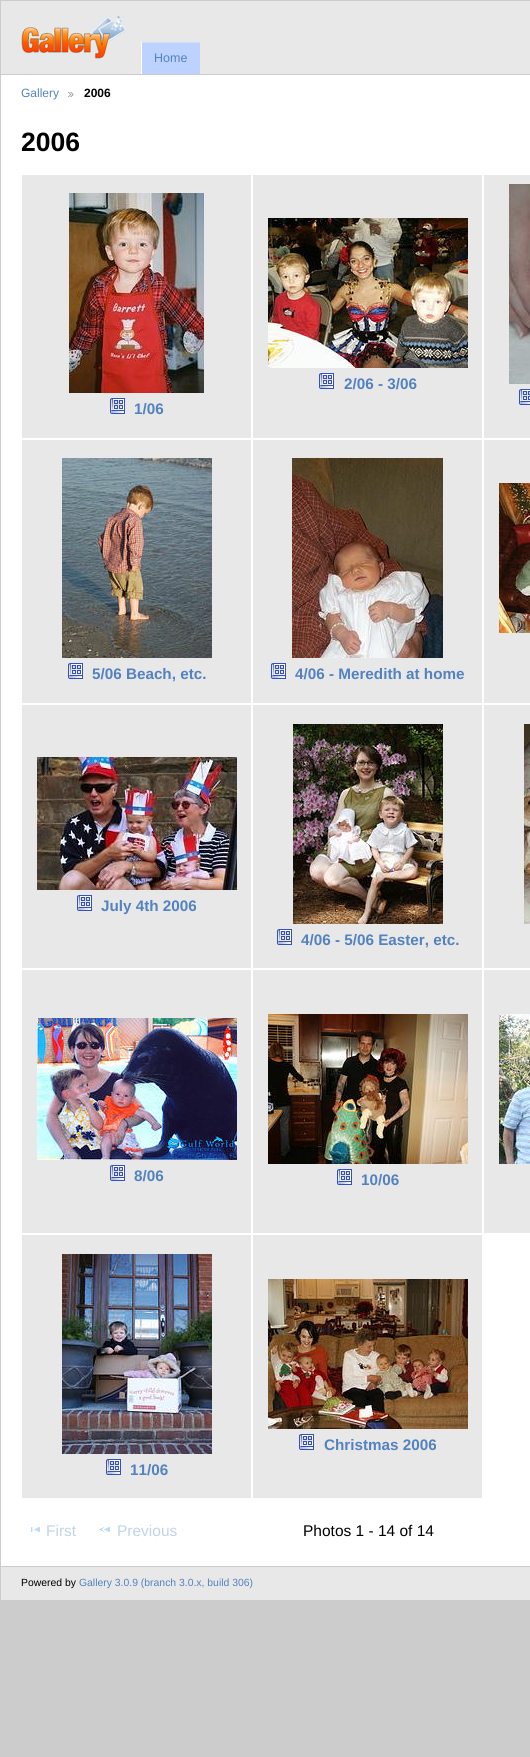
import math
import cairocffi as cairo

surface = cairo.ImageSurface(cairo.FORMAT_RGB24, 530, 1757)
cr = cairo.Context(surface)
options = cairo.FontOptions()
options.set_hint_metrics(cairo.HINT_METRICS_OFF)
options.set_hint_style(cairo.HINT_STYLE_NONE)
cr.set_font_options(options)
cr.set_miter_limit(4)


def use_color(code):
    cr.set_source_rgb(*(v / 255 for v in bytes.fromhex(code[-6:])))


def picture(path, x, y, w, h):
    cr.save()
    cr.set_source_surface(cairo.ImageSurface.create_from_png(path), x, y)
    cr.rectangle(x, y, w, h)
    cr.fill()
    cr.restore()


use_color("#cccccc")
cr.paint()
use_color("#ffffff")
cr.rectangle(1, 75, 529, 1491)
cr.fill()
use_color("#e8e8e8")
cr.rectangle(1, 1, 529, 73)
cr.fill()
picture("img1.png", 21, 15, 106, 44)
use_color("#bdd2ff")
cr.rectangle(142, 43, 58, 31)
cr.fill()
use_color("#cfdeff")
cr.rectangle(141, 42, 59, 1)
cr.fill()
use_color("#ffffff")
cr.rectangle(141, 42, 1, 32)
cr.fill()
cr.select_font_face("Liberation Sans")
cr.set_font_size(12.5)
use_color("#5382bf")
cr.move_to(154, 62)
cr.show_text("Home")
cr.set_font_size(12)
cr.move_to(21, 97)
cr.show_text("Gallery")
picture("img2.png", 68, 92, 6, 5)
cr.select_font_face("Liberation Sans", cairo.FONT_SLANT_NORMAL, cairo.FONT_WEIGHT_BOLD)
use_color("#000000")
cr.move_to(84, 97)
cr.show_text("2006")
cr.set_font_size(26.5)
cr.move_to(21, 151)
cr.show_text("2006")
use_color("#e8e8e8")
cr.rectangle(253, 175, 229, 263)
cr.fill()
picture("img3.png", 268, 218, 200, 150)
picture("img4.png", 319, 373, 15, 16)
cr.set_font_size(15.25)
use_color("#5382bf")
cr.move_to(344, 389)
cr.show_text("2/06 - 3/06")
use_color("#e8e8e8")
cr.rectangle(484, 175, 46, 263)
cr.fill()
picture("img5.png", 509, 184, 21, 200)
picture("img6.png", 519, 389, 11, 16)
cr.rectangle(22, 175, 229, 263)
cr.fill()
picture("img7.png", 69, 193, 135, 200)
picture("img4.png", 110, 398, 15, 16)
use_color("#5382bf")
cr.move_to(134, 414)
cr.show_text("1/06")
use_color("#e8e8e8")
cr.rectangle(22, 440, 229, 263)
cr.fill()
picture("img8.png", 62, 458, 150, 200)
picture("img4.png", 68, 663, 15, 16)
use_color("#5382bf")
cr.move_to(92, 679)
cr.show_text("5/06 Beach, etc.")
use_color("#e8e8e8")
cr.rectangle(253, 440, 229, 263)
cr.fill()
picture("img9.png", 292, 458, 151, 200)
picture("img4.png", 271, 663, 15, 16)
use_color("#5382bf")
cr.move_to(295, 679)
cr.show_text("4/06 - Meredith at home")
use_color("#e8e8e8")
cr.rectangle(484, 440, 46, 263)
cr.fill()
picture("img10.png", 499, 483, 31, 150)
cr.rectangle(22, 705, 229, 263)
cr.fill()
picture("img11.png", 37, 757, 200, 133)
picture("img4.png", 77, 895, 15, 16)
use_color("#5382bf")
cr.move_to(101, 911)
cr.show_text("July 4th 2006")
use_color("#e8e8e8")
cr.rectangle(484, 705, 46, 263)
cr.fill()
picture("img12.png", 524, 724, 6, 200)
cr.rectangle(253, 705, 229, 263)
cr.fill()
picture("img13.png", 293, 724, 150, 200)
picture("img4.png", 277, 929, 15, 16)
use_color("#5382bf")
cr.move_to(301, 945)
cr.show_text("4/06 - 5/06 Easter, etc.")
use_color("#e8e8e8")
cr.rectangle(22, 970, 229, 263)
cr.fill()
picture("img14.png", 37, 1018, 200, 142)
picture("img4.png", 110, 1165, 15, 16)
use_color("#5382bf")
cr.move_to(134, 1181)
cr.show_text("8/06")
use_color("#e8e8e8")
cr.rectangle(253, 970, 229, 263)
cr.fill()
picture("img15.png", 268, 1014, 200, 150)
picture("img4.png", 337, 1169, 15, 16)
use_color("#5382bf")
cr.move_to(361, 1185)
cr.show_text("10/06")
use_color("#e8e8e8")
cr.rectangle(484, 970, 46, 263)
cr.fill()
picture("img16.png", 499, 1014, 31, 150)
cr.rectangle(253, 1235, 229, 263)
cr.fill()
picture("img17.png", 268, 1279, 200, 150)
picture("img4.png", 299, 1434, 15, 16)
use_color("#5382bf")
cr.move_to(324, 1450)
cr.show_text("Christmas 2006")
use_color("#e8e8e8")
cr.rectangle(22, 1235, 229, 263)
cr.fill()
picture("img18.png", 62, 1254, 150, 200)
picture("img4.png", 106, 1459, 15, 16)
use_color("#5382bf")
cr.move_to(130, 1475)
cr.show_text("11/06")
picture("img19.png", 31, 1527, 9, 5)
cr.select_font_face("Liberation Sans")
cr.set_font_size(15.5)
use_color("#c3d3e9")
cr.move_to(46, 1536)
cr.show_text("First")
picture("img20.png", 99, 1527, 11, 5)
cr.move_to(117, 1536)
cr.show_text("Previous")
use_color("#000000")
cr.move_to(303, 1536)
cr.show_text("Photos 1 - 14 of 14")
use_color("#e8e8e8")
cr.rectangle(1, 1567, 529, 33)
cr.fill()
cr.set_font_size(10.4)
use_color("#000000")
cr.move_to(21, 1586)
cr.show_text("Powered by")
use_color("#5382bf")
cr.move_to(79, 1586)
cr.show_text("Gallery 3.0.9 (branch 3.0.x, build 306)")
surface.write_to_png("result.png")
